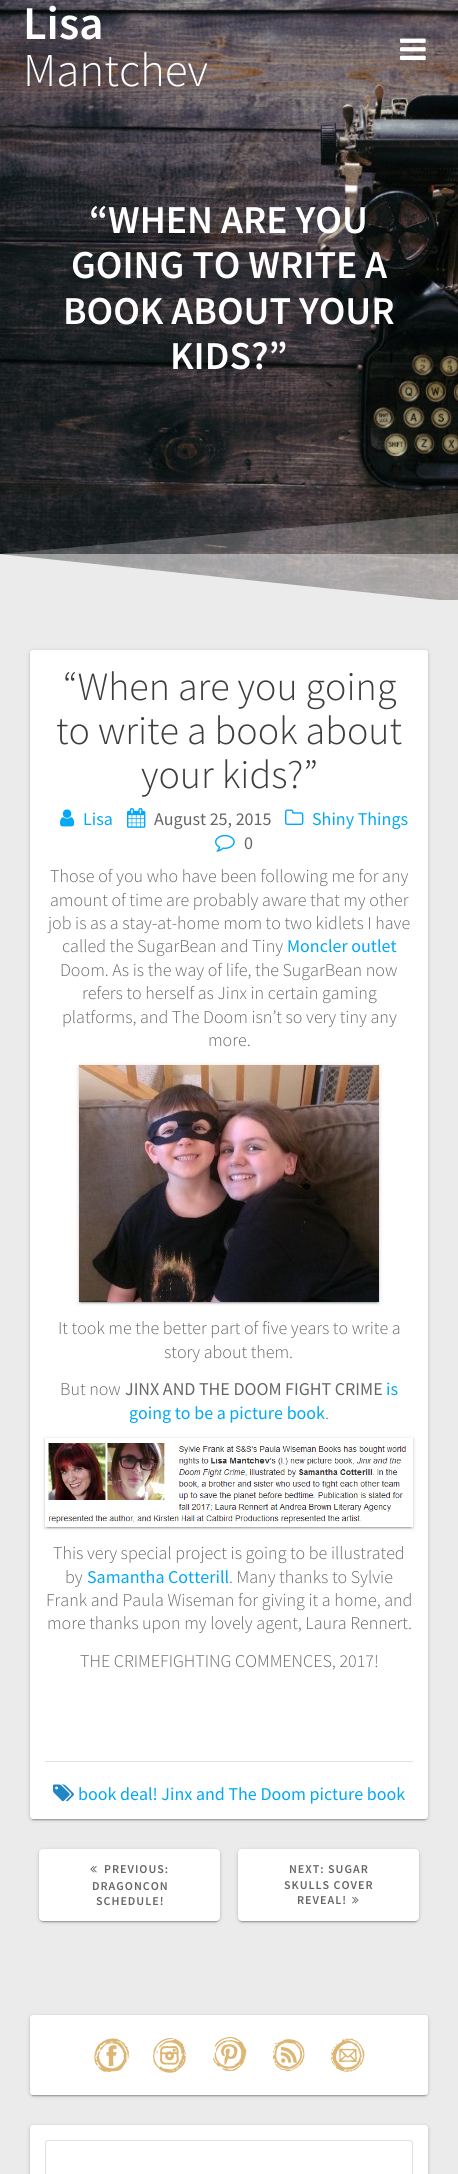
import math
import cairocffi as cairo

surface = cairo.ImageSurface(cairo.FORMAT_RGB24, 458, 2174)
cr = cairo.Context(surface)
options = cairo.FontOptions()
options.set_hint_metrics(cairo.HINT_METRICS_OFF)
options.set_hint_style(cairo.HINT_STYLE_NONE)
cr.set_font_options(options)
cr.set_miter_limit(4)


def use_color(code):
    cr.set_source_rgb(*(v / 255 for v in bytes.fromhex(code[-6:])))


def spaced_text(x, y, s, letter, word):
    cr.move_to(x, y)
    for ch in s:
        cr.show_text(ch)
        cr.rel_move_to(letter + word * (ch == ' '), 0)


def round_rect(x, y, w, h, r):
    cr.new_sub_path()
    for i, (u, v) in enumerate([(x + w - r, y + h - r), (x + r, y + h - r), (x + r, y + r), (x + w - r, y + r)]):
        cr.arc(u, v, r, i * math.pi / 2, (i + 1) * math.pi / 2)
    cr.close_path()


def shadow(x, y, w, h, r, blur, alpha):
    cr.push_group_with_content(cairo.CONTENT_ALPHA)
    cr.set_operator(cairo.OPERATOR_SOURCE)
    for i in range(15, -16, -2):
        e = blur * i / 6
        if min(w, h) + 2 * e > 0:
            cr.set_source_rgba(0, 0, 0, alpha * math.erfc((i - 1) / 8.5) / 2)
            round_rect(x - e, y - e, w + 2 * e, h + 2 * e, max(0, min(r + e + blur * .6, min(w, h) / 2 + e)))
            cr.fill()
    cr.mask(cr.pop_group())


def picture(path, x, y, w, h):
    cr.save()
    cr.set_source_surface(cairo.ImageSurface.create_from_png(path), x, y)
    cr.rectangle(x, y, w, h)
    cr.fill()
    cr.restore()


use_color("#ebebeb")
cr.paint()
picture("img2.png", 0, 0, 458, 600)
cr.select_font_face("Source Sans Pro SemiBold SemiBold")
cr.set_font_size(47)
use_color("#ffffff")
cr.move_to(23, 39)
cr.show_text("Lisa")
cr.select_font_face("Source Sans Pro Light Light")
cr.move_to(23, 86)
cr.show_text("Mantchev")
picture("img1.png", 400, 38, 26, 22)
cr.select_font_face("Source Sans Pro SemiBold SemiBold")
cr.set_font_size(39.5)
cr.move_to(89, 233)
cr.show_text("“WHEN ARE YOU")
cr.move_to(71, 278)
cr.show_text("GOING TO WRITE A")
cr.move_to(63, 324)
cr.show_text("BOOK ABOUT YOUR")
cr.move_to(170, 369)
cr.show_text("KIDS?”")
cr.save()
cr.rectangle(0, 511, 458, 90)
cr.clip()
use_color("#ebebeb")
cr.new_path()
cr.move_to(458, 602)
cr.line_to(-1, 602)
cr.line_to(-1, 554)
cr.close_path()
cr.fill()
cr.restore()
cr.set_source_rgba(0.922, 0.922, 0.922, 0.5)
cr.rectangle(0, 554, 458, 46)
cr.fill()
cr.save()
cr.rectangle(0, 511, 458, 90)
cr.clip()
cr.set_source_rgba(0.922, 0.922, 0.922, 0.25)
cr.new_path()
cr.move_to(-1, 602)
cr.line_to(458, 602)
cr.line_to(458, 513)
cr.line_to(-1, 554)
cr.close_path()
cr.fill()
cr.restore()
use_color("#000000")
shadow(30, 651, 398, 1169, 3, 2.5, 0.12)
shadow(32, 655, 394, 1165, 1, 0.5, 0.2)
shadow(30, 651, 398, 1169, 3, 1, 0.14)
use_color("#ffffff")
round_rect(30, 650, 398, 1169, 3)
cr.fill()
cr.select_font_face("Source Sans Pro Light Light")
cr.set_font_size(40)
use_color("#3d3d3d")
cr.move_to(63, 700)
cr.show_text("“When are you going")
cr.move_to(56, 744)
cr.show_text("to write a book about")
cr.move_to(141, 788)
cr.show_text("your kids?”")
picture("img3.png", 60, 809, 15, 18)
cr.select_font_face("Source Sans Pro")
cr.set_font_size(18)
use_color("#03a9f4")
cr.move_to(83, 825)
cr.show_text("Lisa")
picture("img4.png", 127, 808, 19, 20)
use_color("#666666")
cr.move_to(154, 825)
cr.show_text("August 25, 2015")
picture("img5.png", 285, 809, 19, 16)
use_color("#03a9f4")
cr.move_to(312, 825)
cr.show_text("Shiny Things")
picture("img6.png", 215, 834, 20, 18)
use_color("#666666")
cr.move_to(244, 849)
cr.show_text("0")
use_color("#e0e0e0")
cr.rectangle(45, 1761, 368, 1)
cr.fill()
cr.select_font_face("Source Sans Pro Light Light")
use_color("#666666")
cr.move_to(50, 882)
cr.show_text("Those of you who have been following me for any")
cr.move_to(50, 906)
cr.show_text("amount of time are probably aware that my other")
cr.move_to(48, 929)
cr.show_text("job is as a stay-at-home mom to two kidlets I have")
cr.move_to(62, 952)
cr.show_text("called the SugarBean and Tiny")
cr.select_font_face("Source Sans Pro")
use_color("#03a9f4")
cr.move_to(287, 952)
cr.show_text("Moncler outlet")
cr.select_font_face("Source Sans Pro Light Light")
use_color("#666666")
cr.move_to(60, 976)
cr.show_text("Doom. As is the way of life, the SugarBean now")
cr.move_to(82, 999)
cr.show_text("refers to herself as Jinx in certain gaming")
cr.move_to(62, 1023)
cr.show_text("platforms, and The Doom isn’t so very tiny any")
cr.move_to(208, 1046)
cr.show_text("more.")
use_color("#000000")
shadow(79, 1066, 300, 237, 0, 2.5, 0.12)
shadow(81, 1070, 296, 233, 0, 0.5, 0.2)
shadow(79, 1066, 300, 237, 0, 1, 0.14)
picture("img7.png", 79, 1065, 300, 237)
use_color("#666666")
cr.move_to(58, 1334)
cr.show_text("It took me the better part of five years to write a")
cr.move_to(164, 1358)
cr.show_text("story about them.")
cr.move_to(60, 1395)
cr.show_text("But now")
cr.select_font_face("Source Sans Pro")
cr.move_to(125, 1395)
cr.show_text("JINX AND THE DOOM FIGHT CRIME")
use_color("#03a9f4")
cr.move_to(386, 1395)
cr.show_text("is")
cr.move_to(129, 1419)
cr.show_text("going to be a picture book")
cr.select_font_face("Source Sans Pro Light Light")
use_color("#666666")
cr.move_to(325, 1419)
cr.show_text(".")
cr.save()
cr.set_fill_rule(cairo.FILL_RULE_EVEN_ODD)
cr.new_path()
cr.move_to(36, 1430)
cr.line_to(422, 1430)
cr.line_to(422, 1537)
cr.line_to(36, 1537)
cr.close_path()
cr.move_to(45, 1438)
cr.line_to(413, 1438)
cr.line_to(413, 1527)
cr.line_to(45, 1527)
cr.close_path()
cr.clip()
use_color("#000000")
shadow(45, 1439, 368, 89, 0, 2.5, 0.12)
cr.restore()
cr.save()
cr.set_fill_rule(cairo.FILL_RULE_EVEN_ODD)
cr.new_path()
cr.move_to(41, 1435)
cr.line_to(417, 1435)
cr.line_to(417, 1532)
cr.line_to(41, 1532)
cr.close_path()
cr.move_to(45, 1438)
cr.line_to(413, 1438)
cr.line_to(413, 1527)
cr.line_to(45, 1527)
cr.close_path()
cr.clip()
use_color("#000000")
shadow(45, 1439, 368, 89, 0, 1, 0.14)
cr.restore()
cr.save()
cr.rectangle(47, 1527, 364, 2)
cr.clip()
use_color("#000000")
shadow(47, 1443, 364, 85, 0, 0.5, 0.2)
cr.restore()
picture("img8.png", 48, 1443, 358, 80)
cr.move_to(53, 1559)
cr.show_text("This very special project is going to be illustrated")
cr.move_to(65, 1583)
cr.show_text("by")
cr.select_font_face("Source Sans Pro")
use_color("#03a9f4")
cr.move_to(87, 1583)
cr.show_text("Samantha Cotterill")
cr.select_font_face("Source Sans Pro Light Light")
use_color("#666666")
cr.move_to(229, 1583)
cr.show_text(". Many thanks to Sylvie")
cr.move_to(46, 1606)
cr.show_text("Frank and Paula Wiseman for giving it a home, and")
cr.move_to(47, 1629)
cr.show_text("more thanks upon my lovely agent, Laura Rennert.")
cr.move_to(80, 1667)
cr.show_text("THE CRIMEFIGHTING COMMENCES, 2017!")
picture("img9.png", 53, 1784, 21, 18)
cr.select_font_face("Source Sans Pro")
use_color("#03a9f4")
cr.move_to(78, 1800)
cr.show_text("book deal! Jinx and The Doom picture book")
use_color("#000000")
shadow(39, 1850, 181, 72, 4, 2.5, 0.12)
shadow(41, 1854, 177, 68, 2, 0.5, 0.2)
shadow(39, 1850, 181, 72, 4, 1, 0.14)
use_color("#ffffff")
round_rect(39, 1849, 181, 72, 4)
cr.fill()
picture("img10.png", 90, 1865, 7, 8)
cr.select_font_face("Source Sans Pro SemiBold SemiBold")
cr.set_font_size(12)
use_color("#666666")
spaced_text(104, 1873, "PREVIOUS:", 1, 0)
spaced_text(92, 1890, "DRAGONCON", 1, 0)
spaced_text(96, 1905, "SCHEDULE!", 1, 0)
use_color("#000000")
shadow(238, 1850, 181, 72, 4, 2.5, 0.12)
shadow(240, 1854, 177, 68, 2, 0.5, 0.2)
shadow(238, 1850, 181, 72, 4, 1, 0.14)
use_color("#ffffff")
round_rect(238, 1849, 181, 72, 4)
cr.fill()
use_color("#666666")
spaced_text(289, 1873, "NEXT: SUGAR", 1, 0)
spaced_text(284, 1889, "SKULLS COVER", 1, 0)
spaced_text(297, 1904, "REVEAL!", 1, 0)
picture("img11.png", 352, 1896, 7, 8)
use_color("#000000")
shadow(30, 2016, 398, 80, 3, 2.5, 0.12)
shadow(32, 2020, 394, 76, 1, 0.5, 0.2)
shadow(30, 2016, 398, 80, 3, 1, 0.14)
use_color("#ffffff")
round_rect(30, 2015, 398, 80, 3)
cr.fill()
picture("img12.png", 94, 2038, 35, 34)
picture("img13.png", 153, 2038, 33, 35)
picture("img14.png", 213, 2037, 34, 34)
picture("img15.png", 273, 2039, 32, 33)
picture("img16.png", 331, 2038, 34, 34)
use_color("#000000")
shadow(30, 2126, 398, 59, 3, 2.5, 0.12)
shadow(30, 2126, 398, 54, 3, 1, 0.14)
use_color("#ffffff")
round_rect(30, 2125, 398, 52, 3)
cr.fill()
round_rect(45.5, 2140.5, 367, 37, 2.5)
use_color("#e0e0e0")
cr.set_line_width(1)
cr.stroke()
surface.write_to_png("result.png")
